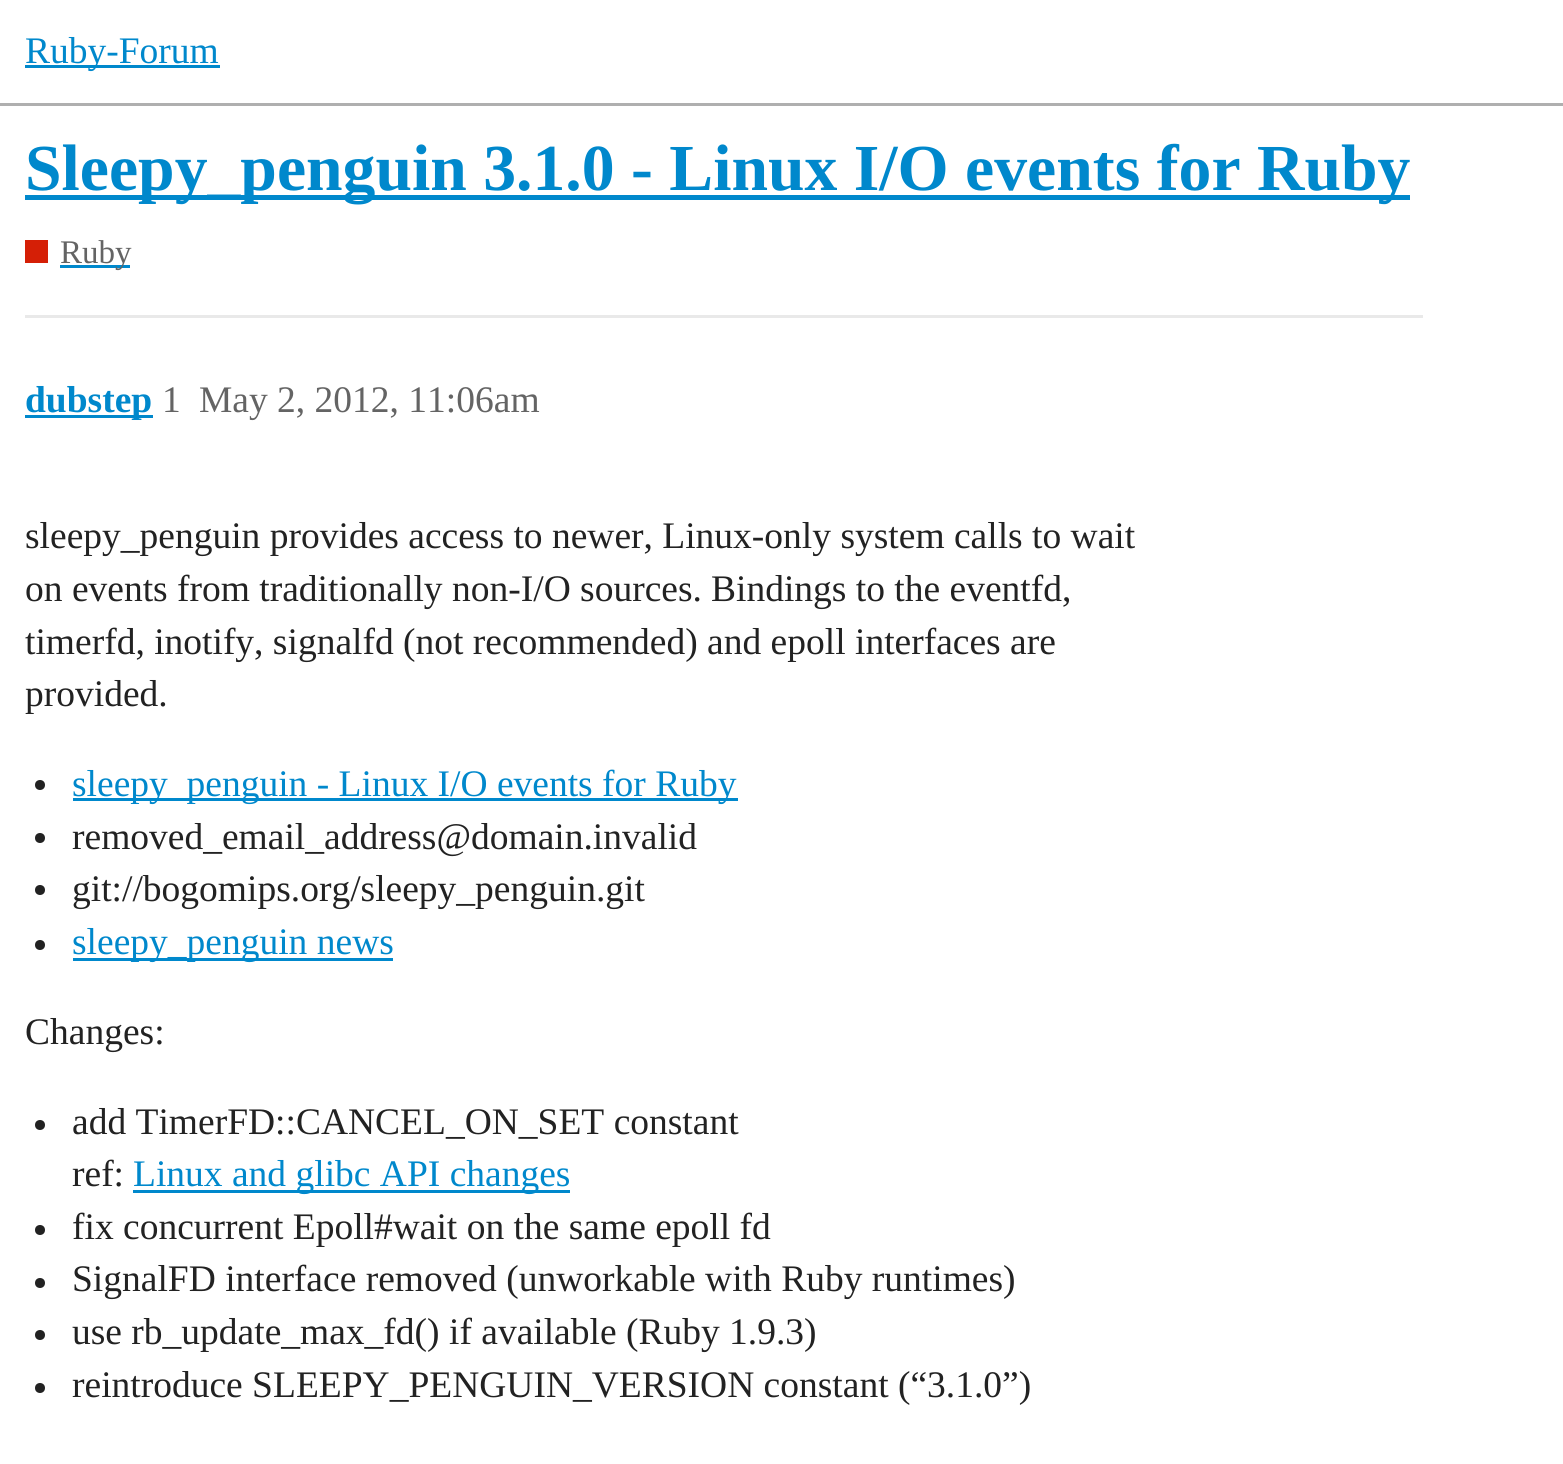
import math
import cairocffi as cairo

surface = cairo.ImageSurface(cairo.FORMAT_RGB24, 1563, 1464)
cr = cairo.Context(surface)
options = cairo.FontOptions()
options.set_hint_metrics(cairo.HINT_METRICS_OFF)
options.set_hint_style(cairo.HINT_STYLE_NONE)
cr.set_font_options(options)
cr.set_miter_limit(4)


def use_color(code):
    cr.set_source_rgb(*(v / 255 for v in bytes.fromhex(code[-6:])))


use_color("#ffffff")
cr.paint()
use_color("#afafaf")
cr.rectangle(0, 103, 1563, 3)
cr.fill()
use_color("#0088cc")
cr.rectangle(25, 65, 195, 3)
cr.fill()
cr.select_font_face("Liberation Serif")
cr.set_font_size(37.5)
cr.move_to(25, 63)
cr.show_text("Ruby-Forum")
cr.rectangle(25, 195, 1385, 5)
cr.fill()
cr.select_font_face("Liberation Serif", cairo.FONT_SLANT_NORMAL, cairo.FONT_WEIGHT_BOLD)
cr.set_font_size(65.7)
cr.move_to(25, 190)
cr.show_text("Sleepy_penguin 3.1.0 - Linux I/O events for Ruby")
use_color("#d51f06")
cr.rectangle(25, 240, 23, 23)
cr.fill()
use_color("#0088cc")
cr.rectangle(60, 265, 70, 3)
cr.fill()
cr.select_font_face("Liberation Serif")
cr.set_font_size(33)
use_color("#646464")
cr.move_to(60, 263)
cr.show_text("Ruby")
use_color("#e9e9e9")
cr.rectangle(25, 315, 1398, 3)
cr.fill()
use_color("#0088cc")
cr.rectangle(25, 415, 128, 3)
cr.fill()
cr.select_font_face("Liberation Serif", cairo.FONT_SLANT_NORMAL, cairo.FONT_WEIGHT_BOLD)
cr.set_font_size(37.5)
cr.move_to(25, 412)
cr.show_text("dubstep")
cr.select_font_face("Liberation Serif")
use_color("#646464")
cr.move_to(162, 412)
cr.show_text("1")
cr.move_to(199, 412)
cr.show_text("May 2, 2012, 11:06am")
use_color("#222222")
cr.move_to(25, 548)
cr.show_text("sleepy_penguin provides access to newer, Linux-only system calls to wait")
cr.move_to(25, 601)
cr.show_text("on events from traditionally non-I/O sources.")
cr.move_to(711, 601)
cr.show_text("Bindings to the eventfd,")
cr.move_to(25, 654)
cr.show_text("timerfd, inotify, signalfd (not recommended) and epoll interfaces are")
cr.move_to(25, 706)
cr.show_text("provided.")
cr.new_path()
cr.arc(40, 785, 5, 0, 2 * math.pi)
cr.fill()
use_color("#0088cc")
cr.rectangle(73, 798, 665, 3)
cr.fill()
cr.move_to(72, 796)
cr.show_text("sleepy_penguin - Linux I/O events for Ruby")
use_color("#222222")
cr.new_path()
cr.arc(40, 838, 5, 0, 2 * math.pi)
cr.fill()
cr.move_to(72, 849)
cr.show_text("removed_email_address@domain.invalid")
cr.new_path()
cr.arc(40, 890, 5, 0, 2 * math.pi)
cr.fill()
cr.move_to(72, 901)
cr.show_text("git://bogomips.org/sleepy_penguin.git")
cr.new_path()
cr.arc(40, 945, 5, 0, 2 * math.pi)
cr.fill()
use_color("#0088cc")
cr.rectangle(73, 958, 320, 3)
cr.fill()
cr.move_to(72, 954)
cr.show_text("sleepy_penguin news")
use_color("#222222")
cr.move_to(25, 1044)
cr.show_text("Changes:")
cr.new_path()
cr.arc(40, 1125, 5, 0, 2 * math.pi)
cr.fill()
cr.move_to(72, 1134)
cr.show_text("add TimerFD::CANCEL_ON_SET constant")
cr.move_to(72, 1186)
cr.show_text("ref:")
use_color("#0088cc")
cr.rectangle(133, 1190, 437, 3)
cr.fill()
cr.move_to(133, 1186)
cr.show_text("Linux and glibc API changes")
use_color("#222222")
cr.new_path()
cr.arc(40, 1230, 5, 0, 2 * math.pi)
cr.fill()
cr.move_to(72, 1239)
cr.show_text("fix concurrent Epoll#wait on the same epoll fd")
cr.new_path()
cr.arc(40, 1283, 5, 0, 2 * math.pi)
cr.fill()
cr.move_to(72, 1291)
cr.show_text("SignalFD interface removed (unworkable with Ruby runtimes)")
cr.new_path()
cr.arc(40, 1335, 5, 0, 2 * math.pi)
cr.fill()
cr.move_to(72, 1344)
cr.show_text("use rb_update_max_fd() if available (Ruby 1.9.3)")
cr.new_path()
cr.arc(40, 1388, 5, 0, 2 * math.pi)
cr.fill()
cr.move_to(72, 1397)
cr.show_text("reintroduce SLEEPY_PENGUIN_VERSION constant (“3.1.0”)")
surface.write_to_png("result.png")
